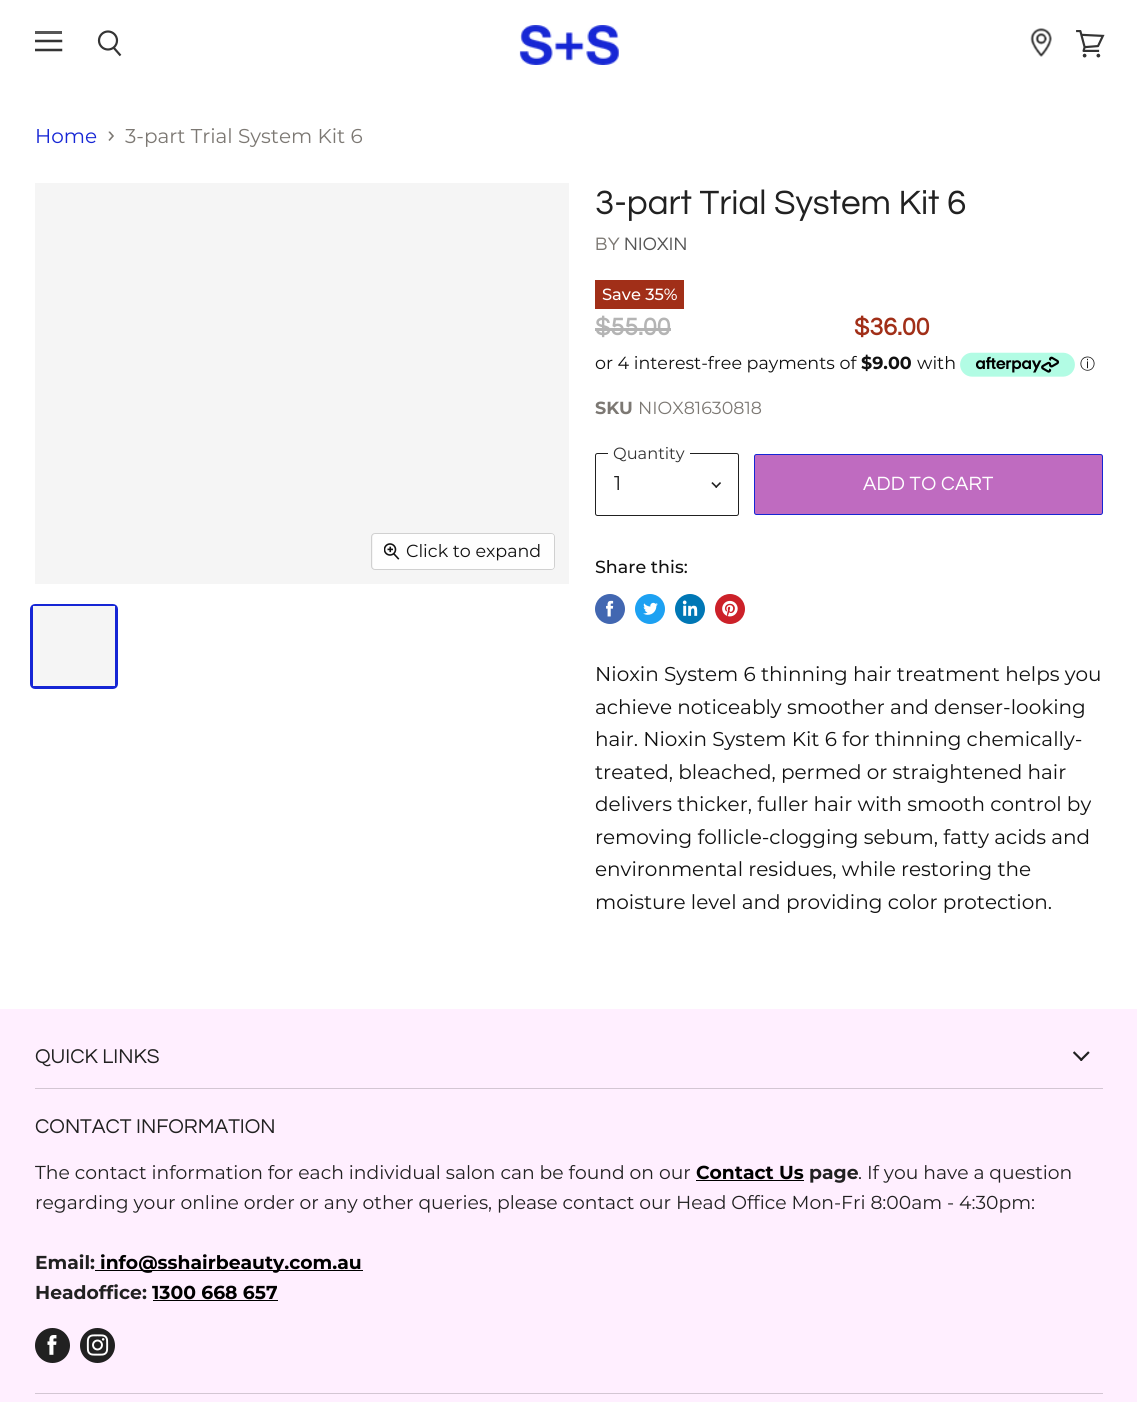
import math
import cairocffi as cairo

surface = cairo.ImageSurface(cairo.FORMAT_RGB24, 1137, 1402)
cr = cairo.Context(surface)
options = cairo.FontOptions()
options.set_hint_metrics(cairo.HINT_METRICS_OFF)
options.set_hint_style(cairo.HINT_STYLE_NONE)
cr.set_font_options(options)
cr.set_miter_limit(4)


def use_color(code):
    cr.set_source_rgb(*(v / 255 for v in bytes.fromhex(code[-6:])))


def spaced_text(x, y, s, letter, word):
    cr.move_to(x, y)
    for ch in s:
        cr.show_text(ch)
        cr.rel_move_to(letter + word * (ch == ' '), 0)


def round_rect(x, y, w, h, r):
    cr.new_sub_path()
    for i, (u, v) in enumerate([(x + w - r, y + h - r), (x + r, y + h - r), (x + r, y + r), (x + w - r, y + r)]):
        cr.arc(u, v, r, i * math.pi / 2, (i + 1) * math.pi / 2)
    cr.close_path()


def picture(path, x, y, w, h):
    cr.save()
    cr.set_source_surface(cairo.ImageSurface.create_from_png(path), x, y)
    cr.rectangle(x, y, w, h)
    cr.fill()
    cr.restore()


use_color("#ffffff")
cr.paint()
picture("img1.png", 519, 25, 100, 40)
use_color("#565656")
cr.rectangle(35, 31, 27, 3)
cr.fill()
cr.save()
cr.rectangle(35, 30, 28, 23)
cr.clip()
cr.new_path()
cr.move_to(61, 41)
cr.line_to(36, 41)
cr.move_to(61, 50)
cr.line_to(36, 50)
use_color("#343434")
cr.set_line_width(2.5)
cr.set_line_cap(cairo.LINE_CAP_SQUARE)
cr.set_line_join(cairo.LINE_JOIN_ROUND)
cr.stroke()
cr.restore()
cr.new_path()
cr.move_to(120.5, 55.5)
cr.line_to(113.5, 47.5)
use_color("#343434")
cr.set_line_width(2.2)
cr.stroke()
cr.arc(108, 40.5, 9, 0, 2 * math.pi)
cr.stroke()
picture("img2.png", 1030, 28, 22, 29)
picture("img3.png", 1076, 30, 29, 28)
cr.select_font_face("Montserrat")
cr.set_font_size(20)
use_color("#1626d5")
cr.move_to(35, 143)
cr.show_text("Home")
cr.save()
cr.new_path()
cr.move_to(107.5, 141.5)
cr.line_to(107.5, 131.5)
cr.line_to(114, 131.5)
cr.line_to(114, 141.5)
cr.close_path()
cr.clip()
cr.new_path()
cr.move_to(109, 140.5)
cr.line_to(113, 136)
cr.line_to(109, 131.5)
use_color("#7c7873")
cr.set_line_width(1.6)
cr.stroke()
cr.restore()
use_color("#7c7873")
cr.move_to(125, 143)
cr.show_text("3-part Trial System Kit 6")
use_color("#f5f5f5")
cr.rectangle(35, 183, 534, 401)
cr.fill()
round_rect(371.5, 533.5, 183, 36, 3.5)
use_color("#d0d0d0")
cr.set_line_width(1)
cr.stroke()
cr.set_source_rgba(1, 1, 1, 0.9)
round_rect(373, 534, 181, 35, 2.5)
cr.fill()
picture("img4.png", 384, 543, 16, 17)
cr.set_font_size(17.5)
use_color("#111111")
cr.move_to(406, 557)
cr.show_text("Click to expand")
round_rect(31.5, 605.5, 85, 82, 3.5)
use_color("#1626d5")
cr.set_line_width(3)
cr.stroke()
use_color("#f5f5f5")
cr.rectangle(33, 606, 82, 80)
cr.fill()
cr.select_font_face("Questrial")
cr.set_font_size(35)
use_color("#212121")
cr.move_to(595, 214)
cr.show_text("3-part Trial System Kit 6")
cr.set_font_size(18.75)
use_color("#7c7873")
spaced_text(595, 250, "BY", 0.25, 0)
use_color("#555555")
spaced_text(624, 250, "NIOXIN", 0.25, 0)
use_color("#a12f18")
cr.rectangle(595, 280, 89, 29)
cr.fill()
cr.select_font_face("Montserrat Medium")
cr.set_font_size(16.25)
use_color("#ffffff")
cr.move_to(602, 300)
cr.show_text("Save 35%")
cr.select_font_face("Questrial", cairo.FONT_SLANT_NORMAL, cairo.FONT_WEIGHT_BOLD)
cr.set_font_size(25)
use_color("#b4b4b4")
cr.move_to(595, 335)
cr.show_text("$55.00")
cr.rectangle(595, 328, 76, 3)
cr.fill()
use_color("#a12f18")
cr.move_to(854, 335)
cr.show_text("$36.00")
cr.select_font_face("Montserrat")
cr.set_font_size(17.5)
use_color("#111111")
cr.move_to(595, 369)
cr.show_text("or 4 interest-free payments of")
cr.select_font_face("Montserrat", cairo.FONT_SLANT_NORMAL, cairo.FONT_WEIGHT_BOLD)
cr.move_to(861, 369)
cr.show_text("$9.00")
cr.select_font_face("Montserrat")
cr.move_to(917, 369)
cr.show_text("with")
picture("img5.png", 960, 352, 115, 25)
cr.select_font_face("WenQuanYi Zen Hei Medium")
cr.set_font_size(15)
cr.move_to(1080, 369)
cr.show_text("ⓘ")
cr.select_font_face("Montserrat", cairo.FONT_SLANT_NORMAL, cairo.FONT_WEIGHT_BOLD)
cr.set_font_size(17.5)
use_color("#7c7873")
cr.move_to(595, 414)
cr.show_text("SKU")
cr.select_font_face("Montserrat")
cr.move_to(638, 414)
cr.show_text("NIOX81630818")
round_rect(595.5, 453.5, 143, 62, 2)
use_color("#212121")
cr.set_line_width(1)
cr.stroke()
use_color("#ffffff")
cr.rectangle(608, 453, 82, 1)
cr.fill()
cr.set_font_size(16.25)
use_color("#333333")
cr.move_to(613, 459)
cr.show_text("Quantity")
cr.set_font_size(20)
use_color("#212121")
cr.move_to(614, 490)
cr.show_text("1")
picture("img6.png", 711, 482, 10, 6)
use_color("#bf6bc0")
round_rect(754.5, 454.5, 348, 60, 2)
cr.fill_preserve()
use_color("#1626d5")
cr.stroke()
cr.select_font_face("Questrial")
use_color("#ffffff")
spaced_text(863, 490, "ADD TO CART", 0.25, 0)
cr.select_font_face("Montserrat Medium")
cr.set_font_size(17.5)
use_color("#111111")
cr.move_to(595, 573)
cr.show_text("Share this:")
use_color("#4267b1")
cr.new_path()
cr.arc(610, 609, 15, 0, 2 * math.pi)
cr.fill()
picture("img7.png", 606, 600, 8, 17)
use_color("#1da1f2")
cr.arc(650, 609, 15, 0, 2 * math.pi)
cr.fill()
picture("img8.png", 643, 602, 15, 13)
use_color("#0077b5")
cr.arc(690, 609, 15, 0, 2 * math.pi)
cr.fill()
picture("img9.png", 682, 600, 16, 16)
use_color("#cc2129")
cr.arc(730, 609, 15, 0, 2 * math.pi)
cr.fill()
picture("img10.png", 722, 600, 16, 17)
cr.select_font_face("Montserrat")
cr.set_font_size(20)
use_color("#111111")
cr.move_to(595, 681)
cr.show_text("Nioxin System 6 thinning hair treatment helps you")
cr.move_to(595, 714)
cr.show_text("achieve noticeably smoother and denser-looking")
cr.move_to(595, 746)
cr.show_text("hair. Nioxin System Kit 6 for thinning chemically-")
cr.move_to(595, 779)
cr.show_text("treated, bleached, permed or straightened hair")
cr.move_to(595, 811)
cr.show_text("delivers thicker, fuller hair with smooth control by")
cr.move_to(595, 844)
cr.show_text("removing follicle-clogging sebum, fatty acids and")
cr.move_to(595, 876)
cr.show_text("environmental residues, while restoring the")
cr.move_to(595, 909)
cr.show_text("moisture level and providing color protection.")
use_color("#ffefff")
cr.rectangle(0, 1009, 1137, 393)
cr.fill()
use_color("#d3c6d3")
cr.rectangle(35, 1088, 1068, 1)
cr.fill()
cr.select_font_face("Questrial")
cr.set_font_size(20.75)
use_color("#212121")
cr.move_to(35, 1063)
cr.show_text("QUICK LINKS")
picture("img11.png", 1073, 1051, 17, 10)
use_color("#d3c6d3")
cr.rectangle(35, 1393, 1068, 1)
cr.fill()
use_color("#212121")
cr.move_to(35, 1133)
cr.show_text("CONTACT INFORMATION")
cr.select_font_face("Montserrat")
cr.set_font_size(18.75)
cr.move_to(35, 1179)
cr.show_text("The contact information for each individual salon can be found on our")
cr.select_font_face("Montserrat", cairo.FONT_SLANT_NORMAL, cairo.FONT_WEIGHT_BOLD)
use_color("#000000")
cr.move_to(696, 1179)
cr.show_text("Contact Us")
cr.rectangle(696, 1180, 108, 1)
cr.fill()
use_color("#212121")
cr.move_to(809, 1179)
cr.show_text("page")
cr.select_font_face("Montserrat")
cr.move_to(858, 1179)
cr.show_text(". If you have a question")
cr.move_to(35, 1209)
cr.show_text("regarding your online order or any other queries, please contact our Head Office Mon-Fri 8:00am - 4:30pm:")
cr.select_font_face("Montserrat", cairo.FONT_SLANT_NORMAL, cairo.FONT_WEIGHT_BOLD)
cr.move_to(35, 1269)
cr.show_text("Email:")
use_color("#000000")
cr.rectangle(95, 1270, 268, 1)
cr.fill()
cr.move_to(100, 1269)
cr.show_text("info@sshairbeauty.com.au")
use_color("#212121")
cr.move_to(35, 1299)
cr.show_text("Headoffice:")
use_color("#000000")
cr.move_to(152, 1299)
cr.show_text("1300 668 657")
cr.rectangle(153, 1300, 125, 1)
cr.fill()
use_color("#212121")
cr.arc(52.5, 1345.5, 17.5, 0, 2 * math.pi)
cr.fill()
picture("img12.png", 47, 1335, 10, 20)
cr.arc(97.5, 1345.5, 17.5, 0, 2 * math.pi)
cr.fill()
picture("img13.png", 86, 1334, 23, 22)
surface.write_to_png("result.png")
